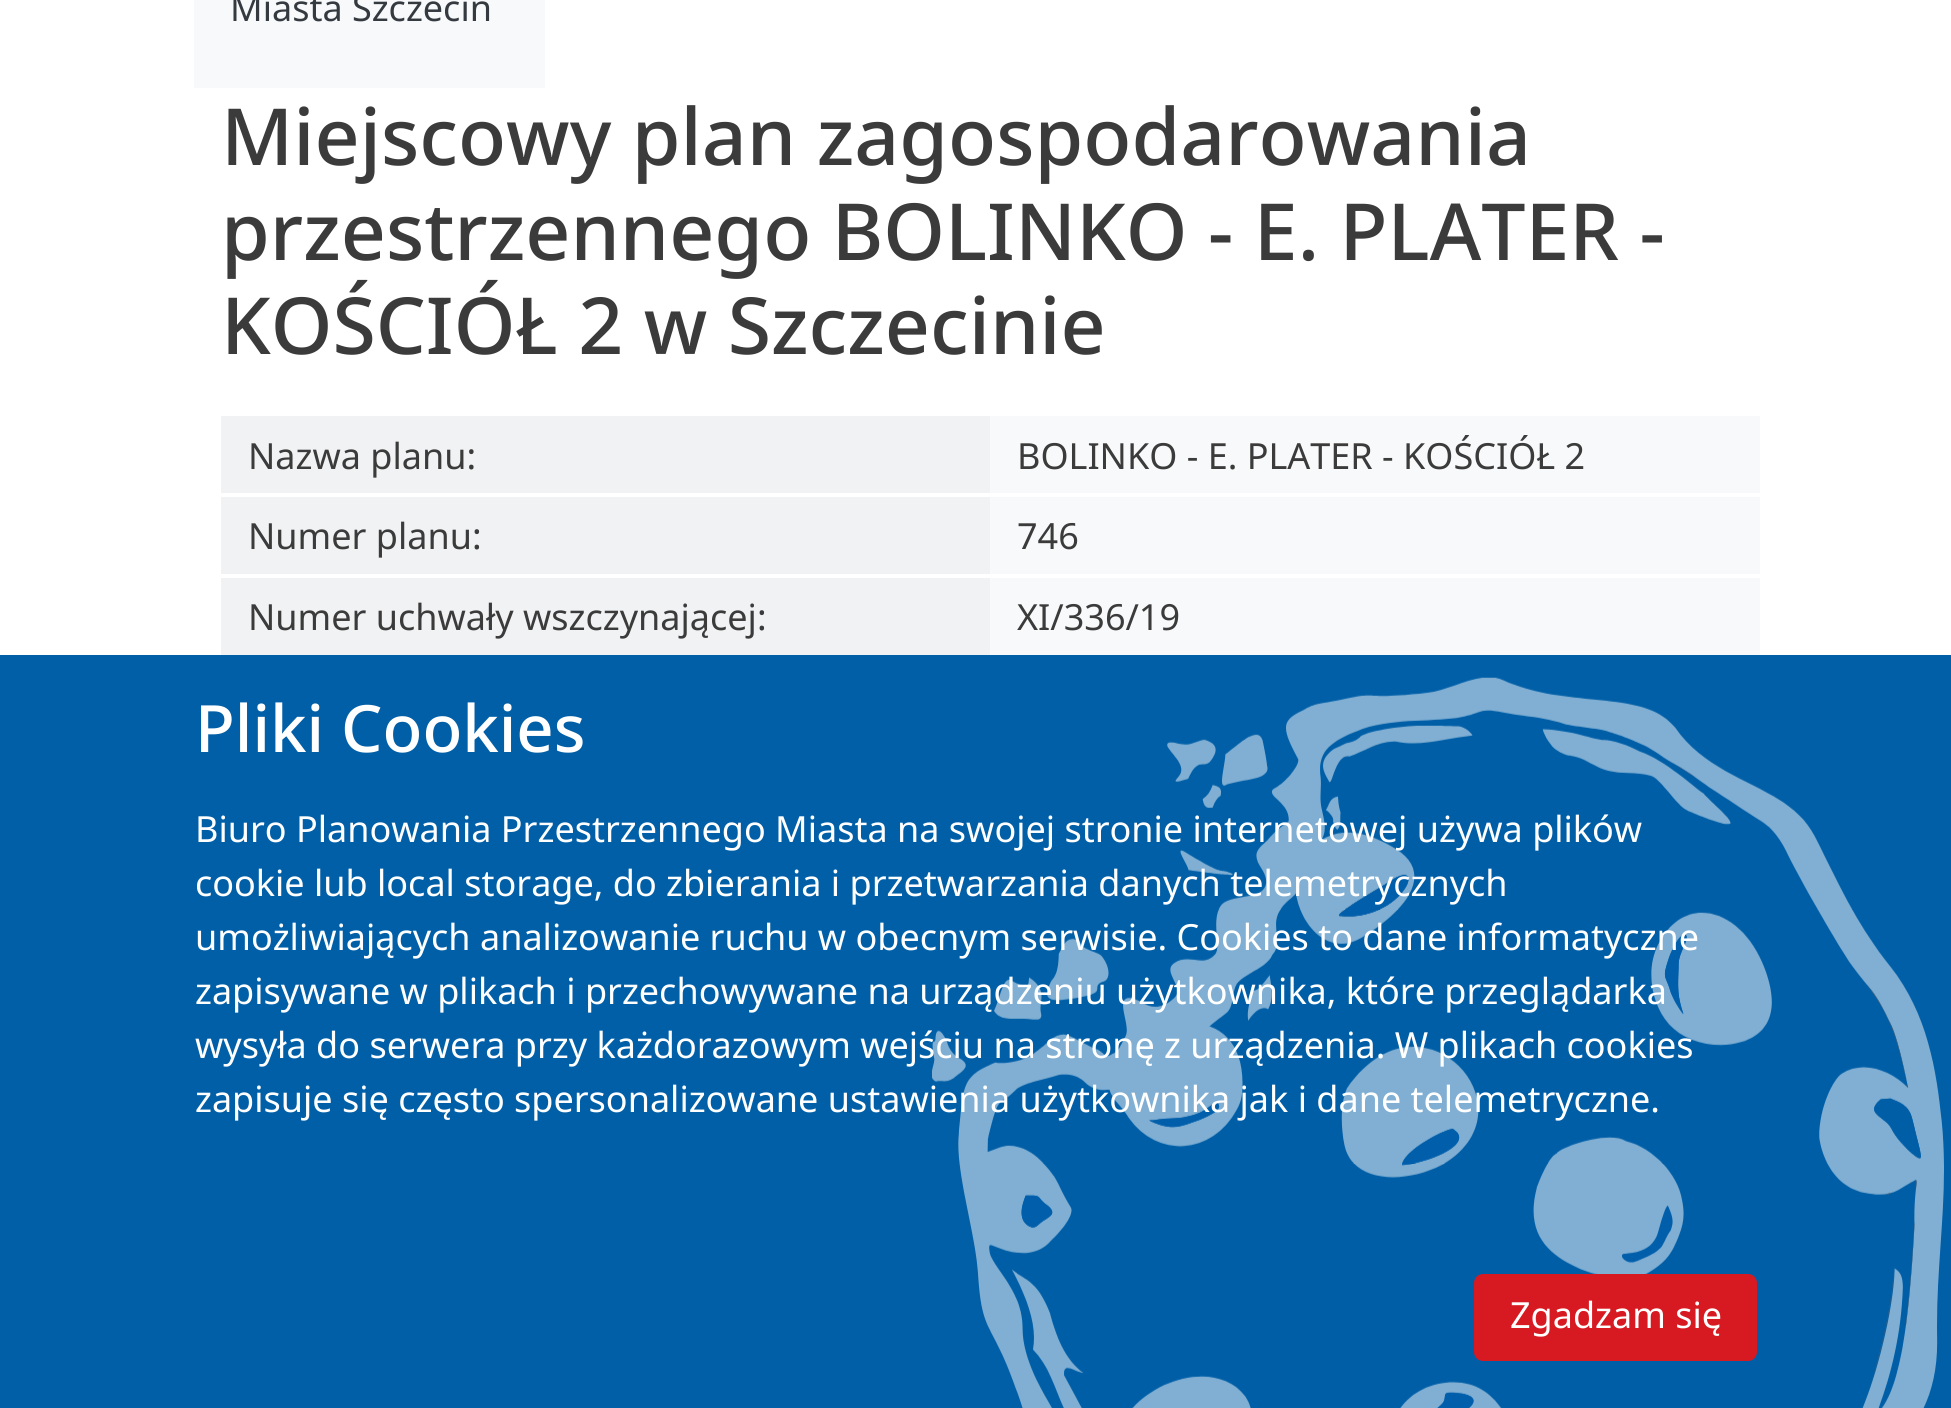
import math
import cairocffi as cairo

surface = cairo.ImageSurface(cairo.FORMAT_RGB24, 1951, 1408)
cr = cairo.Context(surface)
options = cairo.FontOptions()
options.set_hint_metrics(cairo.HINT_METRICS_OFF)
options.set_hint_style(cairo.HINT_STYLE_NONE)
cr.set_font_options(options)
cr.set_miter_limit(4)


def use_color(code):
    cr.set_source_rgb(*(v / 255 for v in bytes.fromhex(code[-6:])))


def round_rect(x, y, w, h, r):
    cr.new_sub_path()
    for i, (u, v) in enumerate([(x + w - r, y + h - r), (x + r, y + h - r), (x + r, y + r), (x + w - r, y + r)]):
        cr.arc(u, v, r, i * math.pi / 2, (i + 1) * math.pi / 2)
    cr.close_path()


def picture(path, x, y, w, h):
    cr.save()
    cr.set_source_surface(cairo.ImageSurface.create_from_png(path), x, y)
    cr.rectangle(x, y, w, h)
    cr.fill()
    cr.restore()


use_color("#ffffff")
cr.paint()
use_color("#f8f9fa")
cr.rectangle(194, 0, 351, 88)
cr.fill()
cr.select_font_face("Noto Sans")
cr.set_font_size(36)
use_color("#343a40")
cr.move_to(230, 21)
cr.show_text("Miasta Szczecin")
cr.select_font_face("Noto Sans Medium")
cr.set_font_size(78.75)
use_color("#3b3b3b")
cr.move_to(221, 165)
cr.show_text("Miejscowy plan zagospodarowania")
cr.move_to(221, 260)
cr.show_text("przestrzennego BOLINKO - E. PLATER -")
cr.move_to(221, 354)
cr.show_text("KOŚCIÓŁ 2 w Szczecinie")
use_color("#f1f2f3")
cr.rectangle(221, 416, 769, 77)
cr.fill()
cr.select_font_face("Noto Sans")
cr.set_font_size(36)
use_color("#3b3b3b")
cr.move_to(248, 469)
cr.show_text("Nazwa planu:")
use_color("#f8f9fa")
cr.rectangle(990, 416, 770, 77)
cr.fill()
use_color("#3b3b3b")
cr.move_to(1017, 469)
cr.show_text("BOLINKO - E. PLATER - KOŚCIÓŁ 2")
use_color("#f1f2f3")
cr.rectangle(221, 497, 769, 77)
cr.fill()
use_color("#3b3b3b")
cr.move_to(248, 549)
cr.show_text("Numer planu:")
use_color("#f8f9fa")
cr.rectangle(990, 497, 770, 77)
cr.fill()
use_color("#3b3b3b")
cr.move_to(1017, 549)
cr.show_text("746")
use_color("#f1f2f3")
cr.rectangle(221, 578, 769, 77)
cr.fill()
use_color("#3b3b3b")
cr.move_to(248, 630)
cr.show_text("Numer uchwały wszczynającej:")
use_color("#f8f9fa")
cr.rectangle(990, 578, 770, 77)
cr.fill()
use_color("#3b3b3b")
cr.move_to(1017, 630)
cr.show_text("XI/336/19")
use_color("#015fa7")
cr.rectangle(0, 655, 1951, 753)
cr.fill()
picture("img1.png", 932, 677, 1012, 731)
cr.select_font_face("Noto Sans Medium")
cr.set_font_size(65.25)
use_color("#ffffff")
cr.move_to(195, 752)
cr.show_text("Pliki Cookies")
cr.select_font_face("Noto Sans")
cr.set_font_size(36)
cr.move_to(195, 842)
cr.show_text("Biuro Planowania Przestrzennego Miasta na swojej stronie internetowej używa plików")
cr.move_to(195, 896)
cr.show_text("cookie lub local storage, do zbierania i przetwarzania danych telemetrycznych")
cr.move_to(195, 950)
cr.show_text("umożliwiających analizowanie ruchu w obecnym serwisie. Cookies to dane informatyczne")
cr.move_to(195, 1004)
cr.show_text("zapisywane w plikach i przechowywane na urządzeniu użytkownika, które przeglądarka")
cr.move_to(195, 1058)
cr.show_text("wysyła do serwera przy każdorazowym wejściu na stronę z urządzenia. W plikach cookies")
cr.move_to(195, 1112)
cr.show_text("zapisuje się często spersonalizowane ustawienia użytkownika jak i dane telemetryczne.")
use_color("#d71921")
round_rect(1474, 1274, 283, 87, 9)
cr.fill()
use_color("#ffffff")
cr.move_to(1510, 1328)
cr.show_text("Zgadzam się")
surface.write_to_png("result.png")
